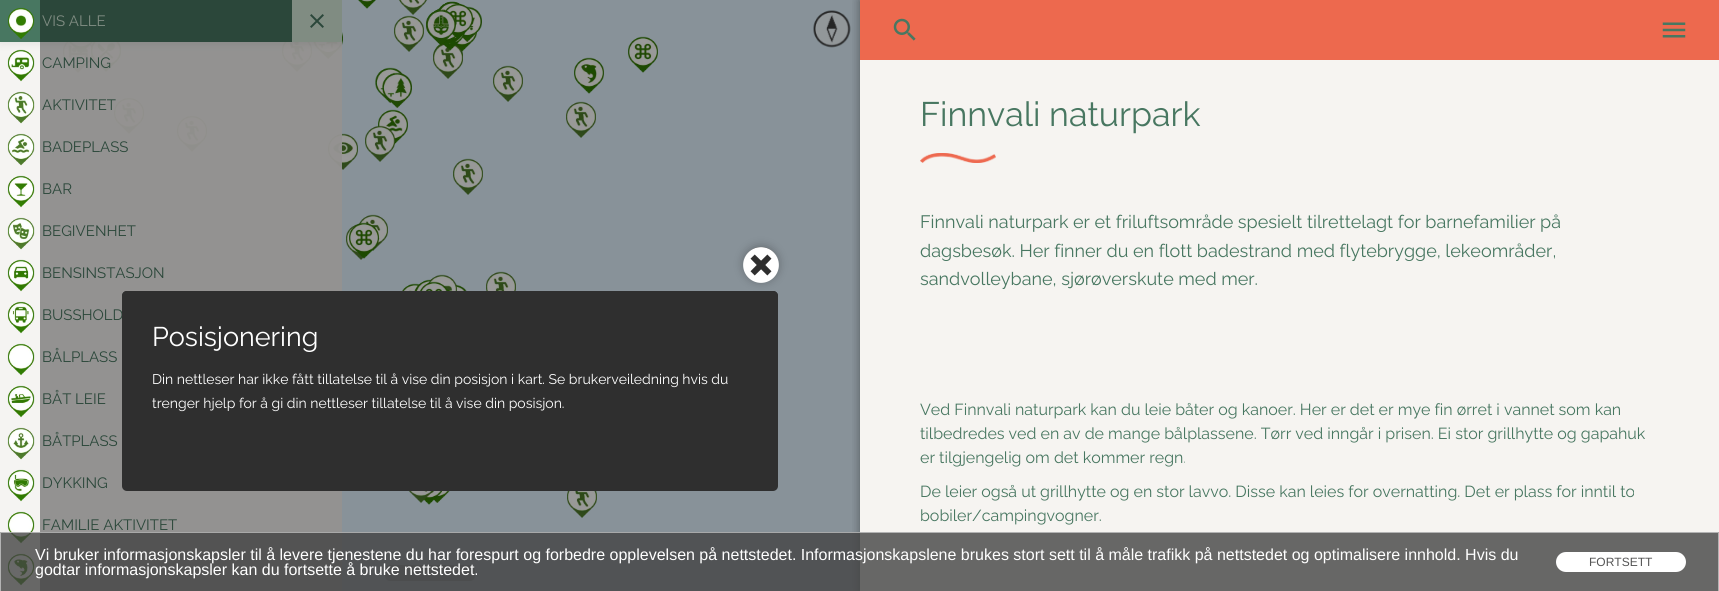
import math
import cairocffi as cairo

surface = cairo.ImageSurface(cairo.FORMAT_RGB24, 1719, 591)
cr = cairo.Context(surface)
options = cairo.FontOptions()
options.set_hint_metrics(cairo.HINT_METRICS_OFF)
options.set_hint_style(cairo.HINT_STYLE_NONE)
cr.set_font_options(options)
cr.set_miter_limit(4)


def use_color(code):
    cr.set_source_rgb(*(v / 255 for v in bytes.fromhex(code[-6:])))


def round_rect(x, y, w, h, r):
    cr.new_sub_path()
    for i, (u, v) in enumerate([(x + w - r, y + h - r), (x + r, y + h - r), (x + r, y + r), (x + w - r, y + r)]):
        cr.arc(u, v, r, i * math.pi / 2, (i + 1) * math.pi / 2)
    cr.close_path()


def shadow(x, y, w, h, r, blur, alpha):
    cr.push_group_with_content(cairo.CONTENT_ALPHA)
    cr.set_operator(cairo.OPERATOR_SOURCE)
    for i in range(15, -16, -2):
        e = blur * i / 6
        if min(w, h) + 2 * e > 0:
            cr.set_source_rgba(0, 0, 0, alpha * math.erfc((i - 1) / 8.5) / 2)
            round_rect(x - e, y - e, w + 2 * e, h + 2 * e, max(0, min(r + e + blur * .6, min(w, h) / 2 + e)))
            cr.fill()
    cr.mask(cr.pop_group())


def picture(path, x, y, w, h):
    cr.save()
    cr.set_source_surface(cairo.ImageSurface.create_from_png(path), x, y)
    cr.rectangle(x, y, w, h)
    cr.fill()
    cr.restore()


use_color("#f6f4f1")
cr.paint()
use_color("#e2f4ff")
cr.rectangle(0, 0, 860, 591)
cr.fill()
picture("img15.png", 63, 0, 595, 518)
cr.set_source_rgba(0.965, 0.957, 0.945, 0.8)
cr.rectangle(0, 42, 342, 549)
cr.fill()
cr.rectangle(0, 42, 342, 549)
cr.fill()
cr.save()
cr.rectangle(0, 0, 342, 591)
cr.clip()
use_color("#000000")
shadow(0, 0, 342, 42, 0, 5, 0.1)
cr.restore()
use_color("#487761")
cr.rectangle(0, 0, 292, 42)
cr.fill()
picture("img1.png", 7, 7, 28, 32)
cr.select_font_face("Raleway")
cr.set_font_size(15)
use_color("#d5e9d9")
cr.move_to(42, 26)
cr.show_text("VIS ALLE")
picture("img2.png", 7, 49, 28, 33)
use_color("#487761")
cr.move_to(42, 68)
cr.show_text("CAMPING")
picture("img3.png", 7, 91, 28, 33)
cr.move_to(42, 110)
cr.show_text("AKTIVITET")
picture("img4.png", 7, 133, 28, 33)
cr.move_to(42, 152)
cr.show_text("BADEPLASS")
picture("img5.png", 7, 175, 28, 33)
cr.move_to(42, 194)
cr.show_text("BAR")
picture("img6.png", 7, 217, 28, 33)
cr.move_to(42, 236)
cr.show_text("BEGIVENHET")
picture("img7.png", 7, 259, 28, 33)
cr.move_to(42, 278)
cr.show_text("BENSINSTASJON")
picture("img8.png", 7, 301, 28, 33)
cr.move_to(42, 320)
cr.show_text("BUSSHOLD")
picture("img9.png", 7, 343, 28, 33)
cr.move_to(42, 362)
cr.show_text("BÅLPLASS")
picture("img10.png", 7, 385, 28, 33)
cr.move_to(42, 404)
cr.show_text("BÅT LEIE")
picture("img11.png", 7, 427, 28, 33)
cr.move_to(42, 446)
cr.show_text("BÅTPLASS")
picture("img12.png", 7, 469, 28, 33)
cr.move_to(42, 488)
cr.show_text("DYKKING")
picture("img9.png", 7, 511, 28, 33)
cr.move_to(42, 530)
cr.show_text("FAMILIE AKTIVITET")
picture("img13.png", 7, 553, 28, 33)
use_color("#d5e9d9")
cr.rectangle(292, 0, 50, 42)
cr.fill()
picture("img14.png", 310, 14, 14, 14)
use_color("#b5c3cc")
round_rect(385, 565, 90, 16, 5)
cr.fill()
picture("img16.png", 813, 10, 38, 38)
cr.set_source_rgba(0, 0, 0, 0.4)
cr.rectangle(40, 0, 820, 591)
cr.fill()
cr.save()
cr.rectangle(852, 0, 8, 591)
cr.clip()
use_color("#000000")
shadow(860, 0, 859, 591, 0, 5, 0.4)
cr.restore()
cr.set_source_rgba(0.267, 0.267, 0.267, 0.8)
cr.rectangle(0, 532, 1719, 59)
cr.fill()
cr.set_source_rgba(1, 1, 1, 0.5)
cr.new_path()
cr.move_to(0, 532)
cr.line_to(1719, 532)
cr.line_to(1718, 533)
cr.line_to(1, 533)
cr.close_path()
cr.fill()
cr.new_path()
cr.move_to(1719, 532)
cr.line_to(1719, 591)
cr.line_to(1718, 591)
cr.line_to(1718, 533)
cr.close_path()
cr.fill()
cr.new_path()
cr.move_to(0, 591)
cr.line_to(0, 532)
cr.line_to(1, 533)
cr.line_to(1, 591)
cr.close_path()
cr.fill()
cr.select_font_face("Liberation Sans")
cr.set_font_size(16)
use_color("#ffffff")
cr.move_to(35, 560)
cr.show_text("Vi bruker informasjonskapsler til å levere tjenestene du har forespurt og forbedre opplevelsen på nettstedet. Informasjonskapslene brukes stort sett til å måle trafikk på nettstedet og optimalisere innhold. Hvis du")
cr.move_to(35, 575)
cr.show_text("godtar informasjonskapsler kan du fortsette å bruke nettstedet.")
round_rect(1556, 552, 130, 20, 10)
cr.fill()
cr.set_font_size(12)
use_color("#555555")
cr.move_to(1589, 566)
cr.show_text("FORTSETT")
use_color("#2f2f2f")
round_rect(122, 291, 656, 200, 5)
cr.fill()
cr.new_path()
cr.move_to(127, 291)
cr.line_to(773, 291)
cr.curve_to(776, 291, 778, 293, 778, 296)
cr.line_to(778, 367)
cr.line_to(122, 367)
cr.line_to(122, 296)
cr.curve_to(122, 293, 124, 291, 127, 291)
cr.close_path()
cr.fill()
use_color("#000000")
shadow(744, 247, 34, 34, 17, 5, 0.3)
use_color("#2f2f2f")
cr.arc(761, 264, 17, 0, 2 * math.pi)
cr.fill()
picture("img17.png", 743, 247, 36, 36)
cr.select_font_face("Raleway")
cr.set_font_size(27)
use_color("#ffffff")
cr.move_to(152, 346)
cr.show_text("Posisjonering")
cr.set_font_size(14)
cr.move_to(152, 384)
cr.show_text("Din nettleser har ikke fått tillatelse til å vise din posisjon i kart. Se brukerveiledning hvis du")
cr.move_to(152, 408)
cr.show_text("trenger hjelp for å gi din nettleser tillatelse til å vise din posisjon.")
use_color("#ed694e")
cr.rectangle(860, 0, 859, 60)
cr.fill()
picture("img18.png", 893, 18, 23, 23)
picture("img19.png", 1662, 22, 24, 16)
cr.set_font_size(34)
use_color("#487761")
cr.move_to(920, 126)
cr.show_text("Finnvali naturpark")
picture("img20.png", 920, 153, 76, 10)
cr.set_font_size(18)
cr.move_to(920, 228)
cr.show_text("Finnvali naturpark er et friluftsområde spesielt tilrettelagt for barnefamilier på")
cr.move_to(920, 257)
cr.show_text("dagsbesøk. Her finner du en flott badestrand med flytebrygge, lekeområder,")
cr.move_to(920, 285)
cr.show_text("sandvolleybane, sjørøverskute med mer.")
cr.set_font_size(16)
cr.move_to(920, 415)
cr.show_text("Ved Finnvali naturpark kan du leie båter og kanoer. Her er det er mye fin ørret i vannet som kan")
cr.move_to(920, 439)
cr.show_text("tilbedredes ved en av de mange bålplassene. Tørr ved inngår i prisen. Ei stor grillhytte og gapahuk")
cr.move_to(920, 463)
cr.show_text("er tilgjengelig om det kommer regn.")
cr.move_to(920, 497)
cr.show_text("De leier også ut grillhytte og en stor lavvo. Disse kan leies for overnatting. Det er plass for inntil to")
cr.move_to(920, 521)
cr.show_text("bobiler/campingvogner.")
surface.write_to_png("result.png")
